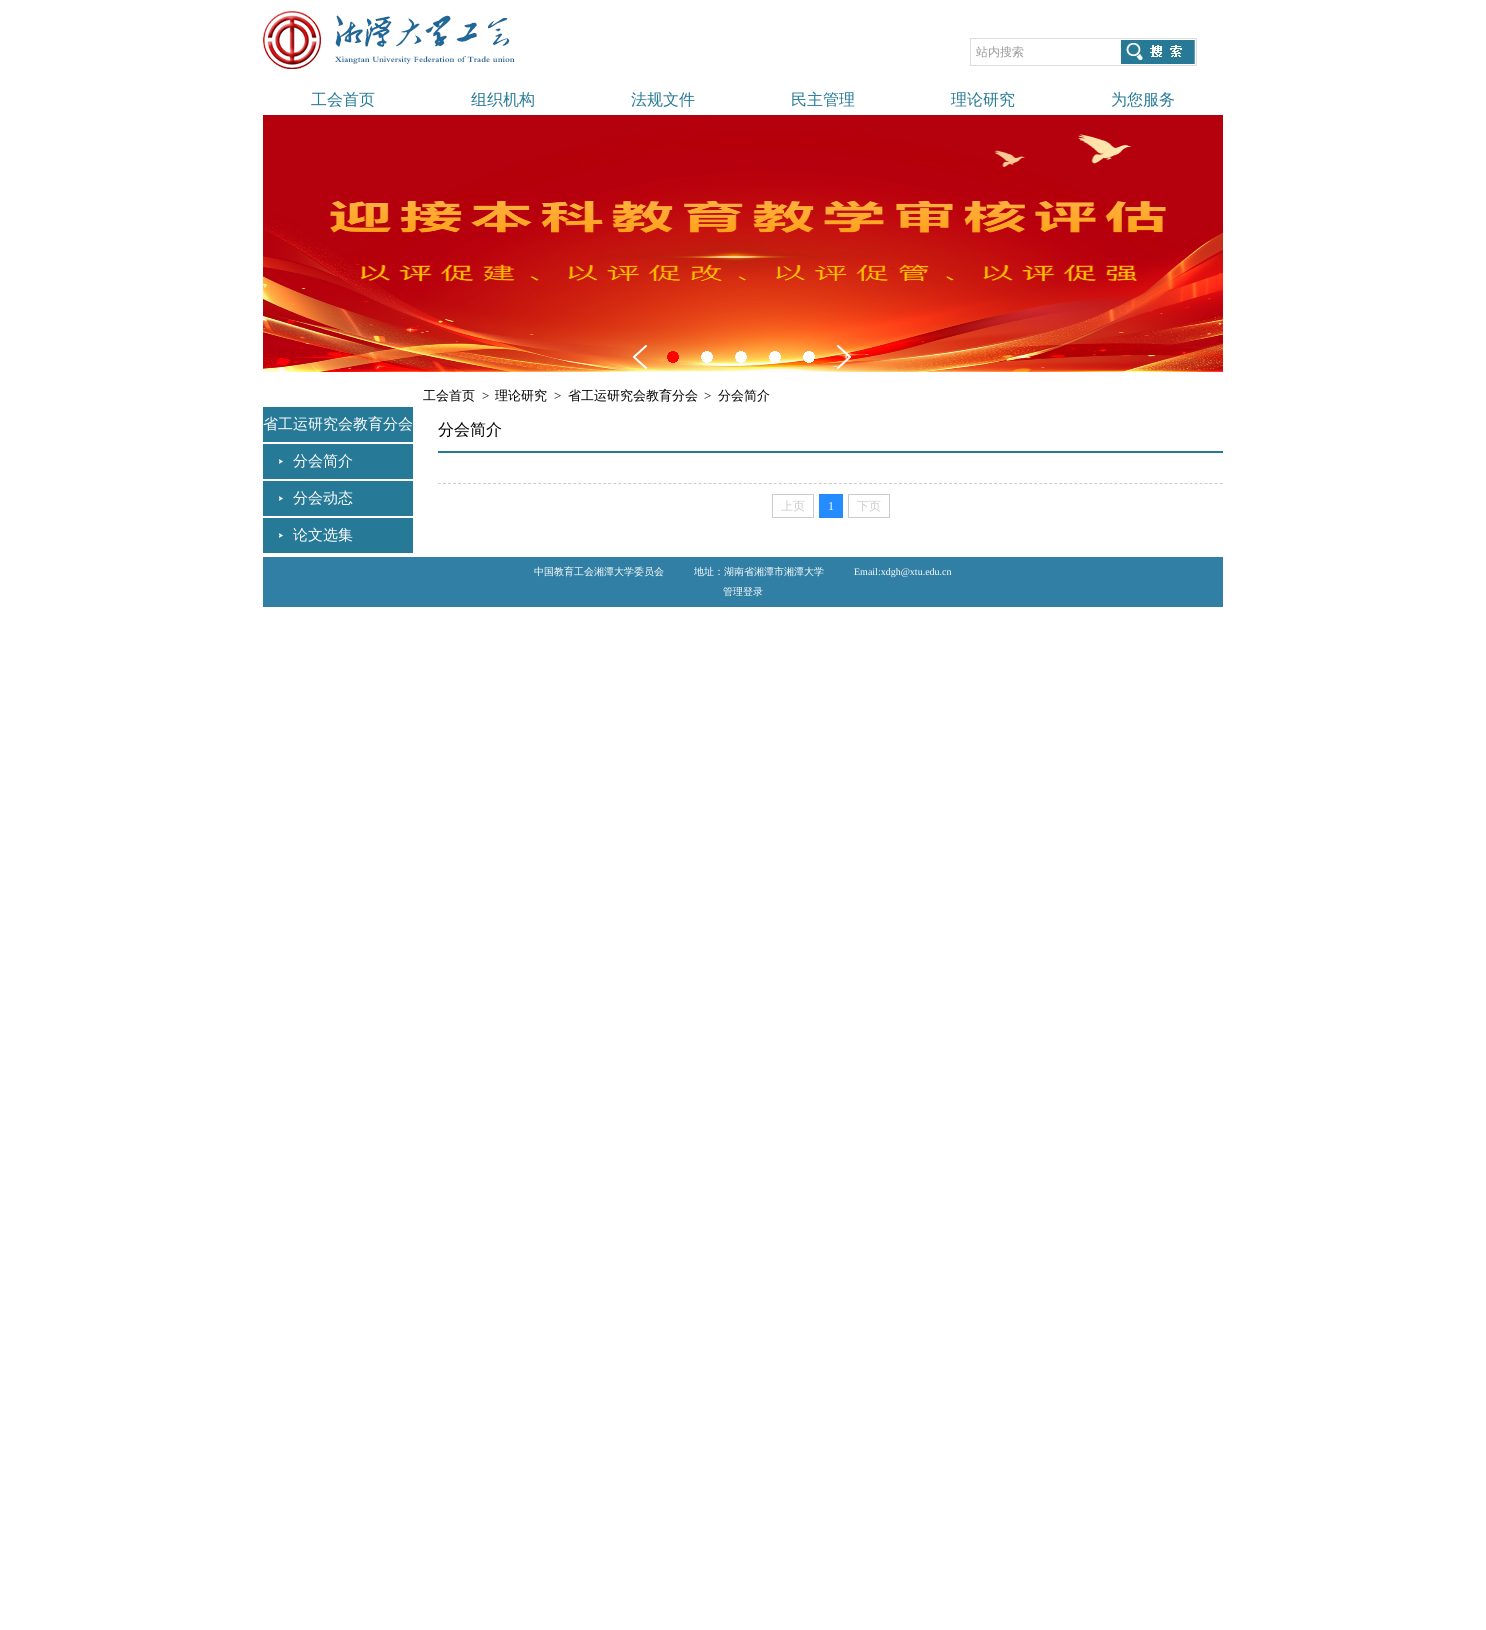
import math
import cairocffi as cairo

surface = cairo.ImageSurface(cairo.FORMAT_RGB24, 1486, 1630)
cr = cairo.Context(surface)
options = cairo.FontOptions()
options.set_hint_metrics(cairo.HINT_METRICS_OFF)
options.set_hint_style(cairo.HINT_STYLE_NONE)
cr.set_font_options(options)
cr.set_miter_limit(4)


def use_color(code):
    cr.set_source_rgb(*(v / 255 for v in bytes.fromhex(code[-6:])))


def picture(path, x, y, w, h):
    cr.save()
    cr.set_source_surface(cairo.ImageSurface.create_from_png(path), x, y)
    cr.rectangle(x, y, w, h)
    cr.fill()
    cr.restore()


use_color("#ffffff")
cr.paint()
picture("img1.png", 263, 11, 252, 58)
cr.rectangle(970.5, 38.5, 226, 27)
use_color("#dddddd")
cr.set_line_width(1)
cr.stroke()
cr.select_font_face("WenQuanYi Zen Hei Medium")
cr.set_font_size(12)
use_color("#999999")
cr.move_to(976, 56)
cr.show_text("站内搜索")
picture("img2.png", 1121, 40, 74, 24)
cr.set_font_size(16)
use_color("#267997")
cr.move_to(311, 105)
cr.show_text("工会首页")
cr.move_to(471, 105)
cr.show_text("组织机构")
cr.move_to(631, 105)
cr.show_text("法规文件")
cr.move_to(791, 105)
cr.show_text("民主管理")
cr.move_to(951, 105)
cr.show_text("理论研究")
cr.move_to(1111, 105)
cr.show_text("为您服务")
picture("img3.png", 263, 115, 960, 257)
picture("img4.png", 633, 345, 14, 24)
picture("img5.png", 667, 351, 12, 12)
picture("img6.png", 701, 351, 12, 12)
picture("img7.png", 735, 351, 12, 12)
picture("img8.png", 769, 351, 12, 12)
picture("img9.png", 803, 351, 12, 12)
picture("img10.png", 837, 345, 14, 24)
cr.rectangle(263, 407, 150, 35)
cr.fill()
cr.set_font_size(15)
use_color("#ffffff")
cr.move_to(263, 429)
cr.show_text("省工运研究会教育分会")
use_color("#267997")
cr.rectangle(263, 444, 150, 35)
cr.fill()
picture("img11.png", 279, 459, 4, 5)
use_color("#ffffff")
cr.move_to(293, 466)
cr.show_text("分会简介")
use_color("#267997")
cr.rectangle(263, 481, 150, 35)
cr.fill()
picture("img11.png", 279, 496, 4, 5)
use_color("#ffffff")
cr.move_to(293, 503)
cr.show_text("分会动态")
use_color("#267997")
cr.rectangle(263, 518, 150, 35)
cr.fill()
picture("img11.png", 279, 533, 4, 5)
use_color("#ffffff")
cr.move_to(293, 540)
cr.show_text("论文选集")
cr.set_font_size(13)
use_color("#000000")
cr.move_to(423, 400)
cr.show_text("工会首页")
cr.select_font_face("Liberation Serif")
cr.move_to(482, 400)
cr.show_text(">")
cr.select_font_face("WenQuanYi Zen Hei Medium")
cr.move_to(495, 400)
cr.show_text("理论研究")
cr.select_font_face("Liberation Serif")
cr.move_to(554, 400)
cr.show_text(">")
cr.select_font_face("WenQuanYi Zen Hei Medium")
cr.move_to(568, 400)
cr.show_text("省工运研究会教育分会")
cr.select_font_face("Liberation Serif")
cr.move_to(704, 400)
cr.show_text(">")
cr.select_font_face("WenQuanYi Zen Hei Medium")
cr.move_to(718, 400)
cr.show_text("分会简介")
use_color("#267997")
cr.rectangle(438, 451, 785, 2)
cr.fill()
cr.set_font_size(16)
use_color("#000000")
cr.move_to(438, 435)
cr.show_text("分会简介")
cr.new_path()
cr.move_to(438, 483.5)
cr.line_to(1223, 483.5)
use_color("#cccccc")
cr.set_dash([3, 2.01])
cr.stroke()
cr.rectangle(772.5, 494.5, 41, 23)
cr.set_dash([])
cr.stroke()
cr.set_font_size(12)
cr.move_to(781, 510)
cr.show_text("上页")
use_color("#258cff")
cr.rectangle(819, 494, 24, 24)
cr.fill()
cr.select_font_face("Liberation Serif")
use_color("#ffffff")
cr.move_to(828, 510)
cr.show_text("1")
cr.rectangle(848.5, 494.5, 41, 23)
use_color("#cccccc")
cr.stroke()
cr.select_font_face("WenQuanYi Zen Hei Medium")
cr.move_to(857, 510)
cr.show_text("下页")
use_color("#317fa5")
cr.rectangle(263, 557, 960, 50)
cr.fill()
cr.set_font_size(10)
use_color("#ffffff")
cr.move_to(534, 575)
cr.show_text("中国教育工会湘潭大学委员会　　　地址：湖南省湘潭市湘潭大学")
cr.select_font_face("Liberation Serif")
cr.move_to(854, 575)
cr.show_text("Email:xdgh@xtu.edu.cn")
cr.select_font_face("WenQuanYi Zen Hei Medium")
cr.move_to(723, 595)
cr.show_text("管理登录")
surface.write_to_png("result.png")
